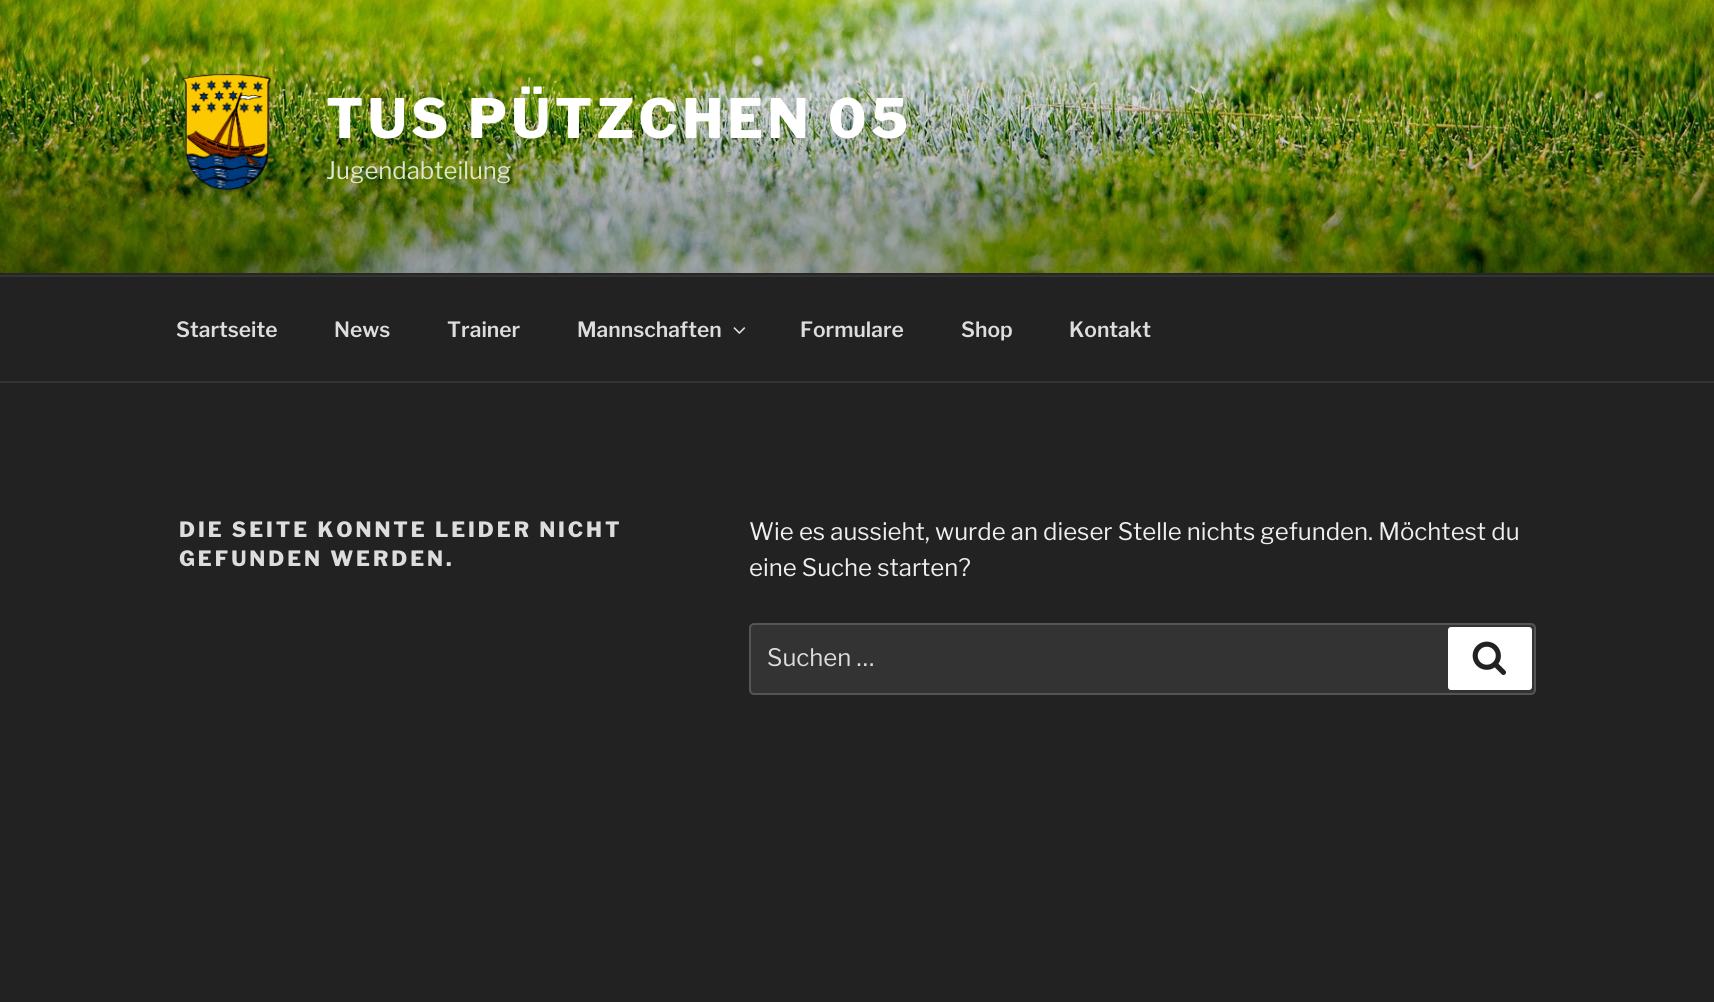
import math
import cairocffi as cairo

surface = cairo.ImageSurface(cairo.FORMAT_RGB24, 1714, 1002)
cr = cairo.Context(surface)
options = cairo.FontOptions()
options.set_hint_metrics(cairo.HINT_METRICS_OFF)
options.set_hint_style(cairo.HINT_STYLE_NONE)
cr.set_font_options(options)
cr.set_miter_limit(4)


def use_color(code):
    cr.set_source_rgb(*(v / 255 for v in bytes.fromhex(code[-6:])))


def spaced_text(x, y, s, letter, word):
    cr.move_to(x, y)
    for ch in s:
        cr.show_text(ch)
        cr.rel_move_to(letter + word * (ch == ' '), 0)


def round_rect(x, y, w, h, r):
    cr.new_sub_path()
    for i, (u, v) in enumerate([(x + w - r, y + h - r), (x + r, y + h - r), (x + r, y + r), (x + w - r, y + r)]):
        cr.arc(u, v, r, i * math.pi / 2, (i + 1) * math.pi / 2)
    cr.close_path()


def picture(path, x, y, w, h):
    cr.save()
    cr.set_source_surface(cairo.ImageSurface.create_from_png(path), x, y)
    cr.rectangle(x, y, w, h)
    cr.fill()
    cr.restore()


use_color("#222222")
cr.paint()
use_color("#262626")
cr.rectangle(0, 273, 1714, 2)
cr.fill()
picture("img1.png", 0, 0, 1714, 273)
picture("img2.png", 182, 73, 90, 118)
cr.select_font_face("Libre Franklin Thin")
cr.set_font_size(54)
use_color("#ffffff")
spaced_text(326, 138, "TUS PÜTZCHEN 05", 4.3, 0)
cr.select_font_face("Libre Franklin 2 Thin")
cr.set_font_size(24)
use_color("#dfe4d0")
cr.move_to(326, 179)
cr.show_text("Jugendabteilung")
use_color("#333333")
cr.rectangle(0, 275, 1714, 2)
cr.fill()
cr.rectangle(0, 381, 1714, 2)
cr.fill()
cr.select_font_face("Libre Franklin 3 Thin")
cr.set_font_size(21)
use_color("#dddddd")
cr.move_to(176, 337)
cr.show_text("Startseite")
cr.move_to(334, 337)
cr.show_text("News")
cr.move_to(447, 337)
cr.show_text("Trainer")
cr.move_to(577, 337)
cr.show_text("Mannschaften")
picture("img3.png", 733, 327, 13, 7)
cr.move_to(800, 337)
cr.show_text("Formulare")
cr.move_to(961, 337)
cr.show_text("Shop")
cr.move_to(1069, 337)
cr.show_text("Kontakt")
cr.select_font_face("Libre Franklin Thin")
spaced_text(179, 537, "DIE SEITE KONNTE LEIDER NICHT", 2.95, 0)
spaced_text(179, 566, "GEFUNDEN WERDEN.", 2.95, 0)
cr.select_font_face("Libre Franklin 2 Thin")
cr.set_font_size(24)
use_color("#eeeeee")
cr.move_to(749, 540)
cr.show_text("Wie es aussieht, wurde an dieser Stelle nichts gefunden. Möchtest du")
cr.move_to(749, 576)
cr.show_text("eine Suche starten?")
use_color("#333333")
round_rect(750, 624, 785, 70, 4)
cr.fill_preserve()
use_color("#555555")
cr.stroke()
use_color("#dddddd")
cr.move_to(767, 666)
cr.show_text("Suchen …")
use_color("#ffffff")
round_rect(1448, 627, 84, 63, 3)
cr.fill()
picture("img4.png", 1472, 641, 34, 34)
surface.write_to_png("result.png")
